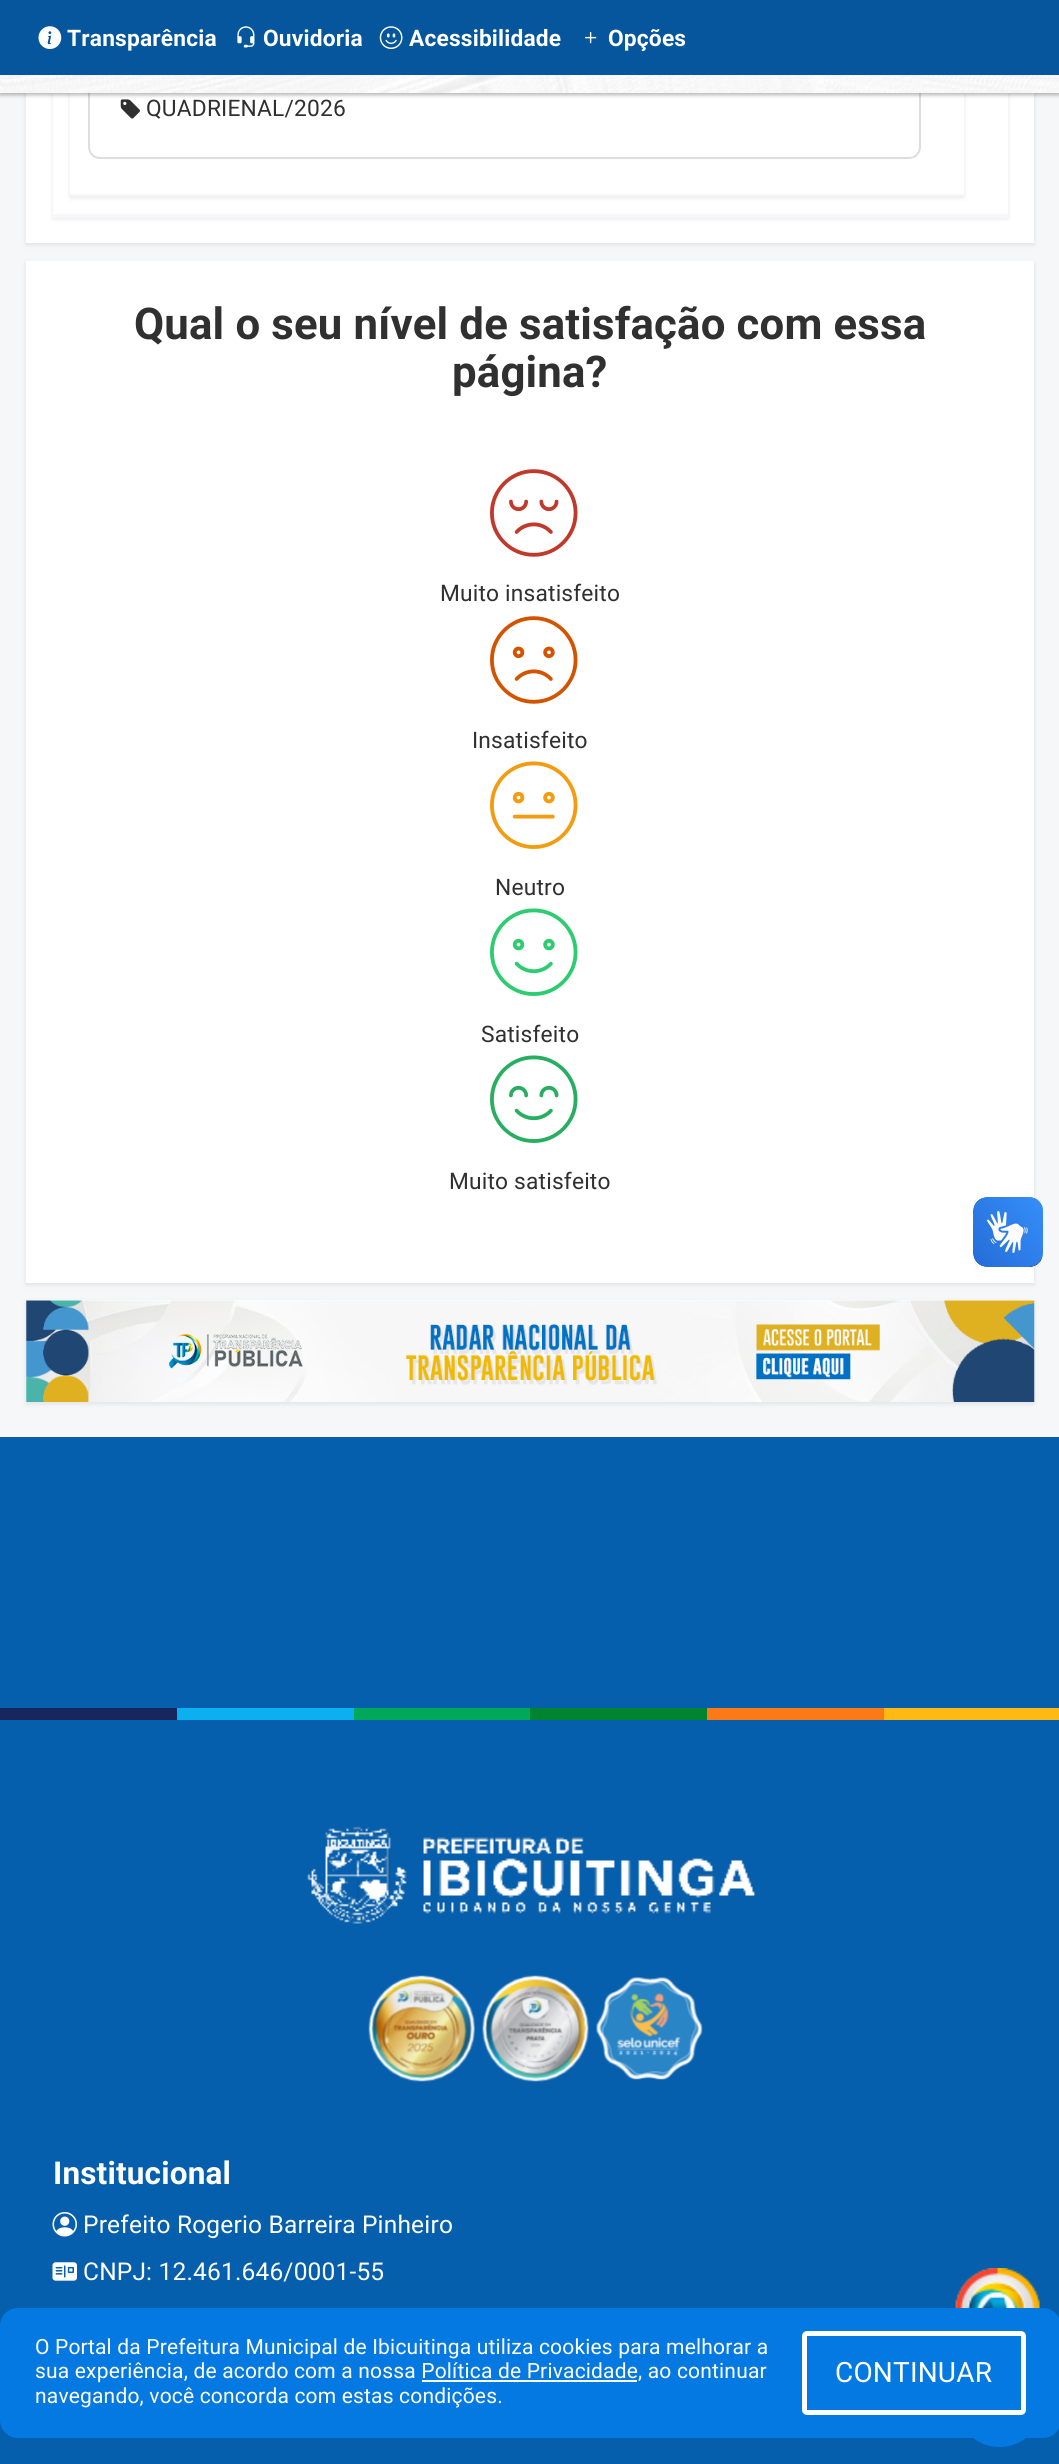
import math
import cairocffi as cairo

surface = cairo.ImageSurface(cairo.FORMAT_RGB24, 1059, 2464)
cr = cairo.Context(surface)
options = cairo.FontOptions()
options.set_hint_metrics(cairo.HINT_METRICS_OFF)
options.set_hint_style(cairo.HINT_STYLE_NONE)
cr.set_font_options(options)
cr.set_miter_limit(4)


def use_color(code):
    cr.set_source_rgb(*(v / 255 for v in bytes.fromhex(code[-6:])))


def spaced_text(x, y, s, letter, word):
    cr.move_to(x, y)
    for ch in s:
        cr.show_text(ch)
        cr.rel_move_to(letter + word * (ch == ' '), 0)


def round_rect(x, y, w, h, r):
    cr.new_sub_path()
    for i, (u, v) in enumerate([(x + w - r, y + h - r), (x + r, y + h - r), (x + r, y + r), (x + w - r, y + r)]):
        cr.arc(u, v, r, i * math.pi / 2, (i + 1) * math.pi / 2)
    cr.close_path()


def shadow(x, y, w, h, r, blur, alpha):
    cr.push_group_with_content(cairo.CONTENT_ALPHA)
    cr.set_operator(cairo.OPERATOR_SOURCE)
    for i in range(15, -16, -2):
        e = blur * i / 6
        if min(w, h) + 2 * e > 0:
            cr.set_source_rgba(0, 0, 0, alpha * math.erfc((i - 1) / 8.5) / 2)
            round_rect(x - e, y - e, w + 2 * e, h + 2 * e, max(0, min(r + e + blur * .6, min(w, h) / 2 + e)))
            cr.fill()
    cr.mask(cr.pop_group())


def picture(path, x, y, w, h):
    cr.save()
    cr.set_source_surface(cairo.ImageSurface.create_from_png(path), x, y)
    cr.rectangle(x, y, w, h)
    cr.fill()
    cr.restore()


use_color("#f6f7f8")
cr.paint()
use_color("#030047")
shadow(26, -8, 1008, 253, 0, 2.5, 0.09)
use_color("#ffffff")
cr.rectangle(26, 93, 1008, 150)
cr.fill()
cr.save()
cr.set_fill_rule(cairo.FILL_RULE_EVEN_ODD)
cr.new_path()
cr.move_to(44, 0)
cr.line_to(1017, 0)
cr.line_to(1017, 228)
cr.line_to(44, 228)
cr.close_path()
cr.move_to(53, -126)
cr.line_to(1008, -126)
cr.line_to(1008, 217)
cr.line_to(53, 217)
cr.close_path()
cr.clip()
use_color("#030047")
shadow(53, -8, 955, 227, 0, 2.5, 0.09)
cr.restore()
cr.save()
cr.set_fill_rule(cairo.FILL_RULE_EVEN_ODD)
cr.new_path()
cr.move_to(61, 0)
cr.line_to(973, 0)
cr.line_to(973, 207)
cr.line_to(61, 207)
cr.close_path()
cr.move_to(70, -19)
cr.line_to(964, -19)
cr.line_to(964, 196)
cr.line_to(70, 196)
cr.close_path()
cr.clip()
use_color("#030047")
shadow(70, -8, 894, 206, 0, 2.5, 0.09)
cr.restore()
round_rect(89, 5, 831, 153, 11)
use_color("#dddddd")
cr.stroke()
picture("img6.png", 120, 99, 20, 20)
use_color("#000000")
shadow(0, 2, 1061, 93, 0, 2, 0.3)
picture("img1.png", 0, 75, 1059, 18)
use_color("#05569c")
cr.rectangle(0, 0, 1059, 75)
cr.fill()
picture("img2.png", 38, 26, 24, 23)
cr.select_font_face("Roboto", cairo.FONT_SLANT_NORMAL, cairo.FONT_WEIGHT_BOLD)
cr.set_font_size(22.75)
use_color("#ffffff")
spaced_text(67, 46, "Transparência", 0.18, 0)
picture("img3.png", 237, 26, 18, 22)
spaced_text(263, 46, "Ouvidoria", 0.18, 0)
picture("img4.png", 379, 26, 24, 23)
spaced_text(409, 46, "Acessibilidade", 0.18, 0)
picture("img5.png", 585, 32, 12, 12)
spaced_text(608, 46, "Opções", 0.18, 0)
use_color("#f6f7f8")
cr.rectangle(53, 214, 955, 4)
cr.fill()
cr.rectangle(70, 194, 894, 2)
cr.fill()
cr.select_font_face("Roboto")
use_color("#303030")
spaced_text(146, 116, "QUADRIENAL/2026", 0.18, 0)
use_color("#030047")
shadow(26, 263, 1008, 1022, 0, 2.5, 0.09)
use_color("#ffffff")
cr.rectangle(26, 261, 1008, 1022)
cr.fill()
cr.select_font_face("Roboto", cairo.FONT_SLANT_NORMAL, cairo.FONT_WEIGHT_BOLD)
cr.set_font_size(43.75)
use_color("#303030")
spaced_text(134, 339, "Qual o seu nível de satisfação com essa", 0.18, 0)
spaced_text(452, 387, "página?", 0.18, 0)
picture("img7.png", 490, 469, 88, 88)
cr.select_font_face("Roboto")
cr.set_font_size(22.75)
spaced_text(440, 601, "Muito insatisfeito", 0.18, 0)
picture("img8.png", 490, 616, 88, 88)
spaced_text(472, 748, "Insatisfeito", 0.18, 0)
picture("img9.png", 490, 761, 88, 88)
spaced_text(495, 895, "Neutro", 0.18, 0)
picture("img10.png", 490, 908, 88, 88)
spaced_text(481, 1042, "Satisfeito", 0.18, 0)
picture("img11.png", 490, 1055, 88, 88)
spaced_text(449, 1189, "Muito satisfeito", 0.18, 0)
picture("img12.png", 973, 1197, 70, 70)
picture("img13.png", 973, 1197, 70, 70)
use_color("#030047")
shadow(26, 1302, 1008, 102, 0, 2.5, 0.09)
use_color("#ffffff")
cr.rectangle(26, 1300, 1008, 102)
cr.fill()
picture("img14.png", 26, 1300, 1009, 102)
use_color("#055fad")
cr.rectangle(0, 1437, 1059, 1027)
cr.fill()
use_color("#17265d")
cr.rectangle(0, 1708, 177, 12)
cr.fill()
use_color("#0caff0")
cr.rectangle(177, 1708, 177, 12)
cr.fill()
use_color("#00a859")
cr.rectangle(354, 1708, 176, 12)
cr.fill()
use_color("#00842f")
cr.rectangle(530, 1708, 177, 12)
cr.fill()
use_color("#fc7917")
cr.rectangle(707, 1708, 177, 12)
cr.fill()
use_color("#feb914")
cr.rectangle(884, 1708, 175, 12)
cr.fill()
picture("img15.png", 307, 1826, 448, 98)
picture("img16.png", 368, 1975, 107, 107)
picture("img17.png", 482, 1975, 107, 107)
picture("img18.png", 596, 1977, 107, 103)
cr.select_font_face("Roboto", cairo.FONT_SLANT_NORMAL, cairo.FONT_WEIGHT_BOLD)
cr.set_font_size(31.5)
use_color("#ffffff")
spaced_text(53, 2184, "Institucional", 0.18, 0)
picture("img19.png", 52, 2212, 25, 25)
cr.select_font_face("Roboto")
cr.set_font_size(24.5)
spaced_text(83, 2233, "Prefeito Rogerio Barreira Pinheiro", 0.18, 0)
picture("img20.png", 52, 2262, 25, 19)
spaced_text(83, 2280, "CNPJ: 12.461.646/0001-55", 0.18, 0)
picture("img21.png", 955, 2268, 85, 40)
use_color("#0579e2")
round_rect(956, 2359, 87, 88, 43.5)
cr.fill()
round_rect(0, 2308, 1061, 130, 18)
cr.fill()
cr.set_font_size(21)
use_color("#ffffff")
spaced_text(35, 2354, "O Portal da Prefeitura Municipal de Ibicuitinga utiliza cookies para melhorar a", 0.18, 0)
spaced_text(35, 2378, "sua experiência, de acordo com a nossa Política de Privacidade, ao continuar", 0.18, 0)
cr.rectangle(422, 2380, 215, 2)
cr.fill()
spaced_text(35, 2403, "navegando, você concorda com estas condições.", 0.18, 0)
round_rect(804.5, 2333.5, 219, 79, 2.5)
cr.set_line_width(5)
cr.stroke()
cr.set_font_size(28)
spaced_text(835, 2382, "CONTINUAR", 0.18, 0)
surface.write_to_png("result.png")
